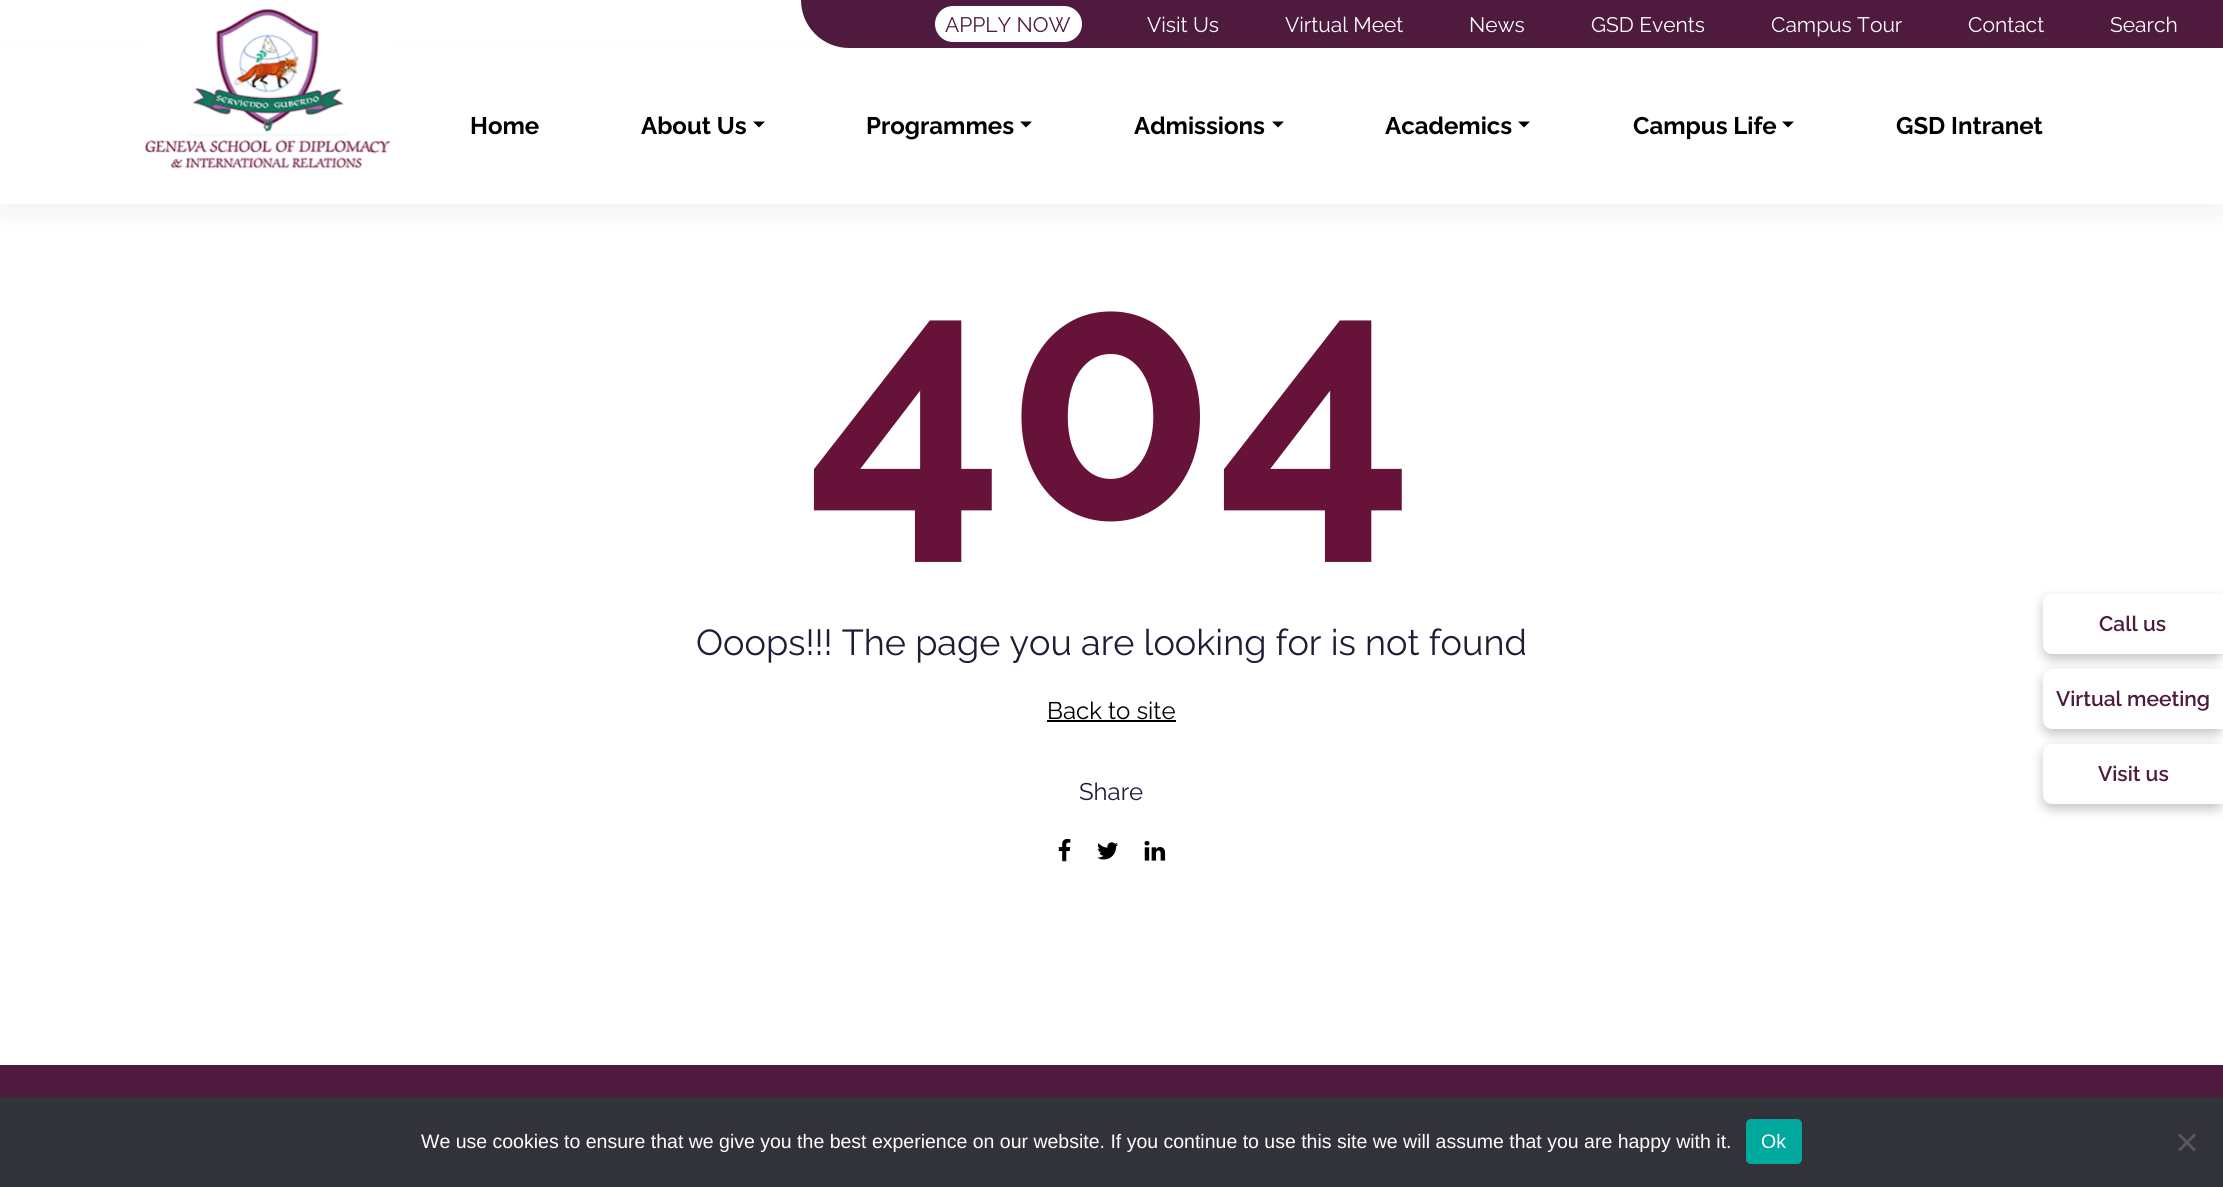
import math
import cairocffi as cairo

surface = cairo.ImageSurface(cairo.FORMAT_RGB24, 2223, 1187)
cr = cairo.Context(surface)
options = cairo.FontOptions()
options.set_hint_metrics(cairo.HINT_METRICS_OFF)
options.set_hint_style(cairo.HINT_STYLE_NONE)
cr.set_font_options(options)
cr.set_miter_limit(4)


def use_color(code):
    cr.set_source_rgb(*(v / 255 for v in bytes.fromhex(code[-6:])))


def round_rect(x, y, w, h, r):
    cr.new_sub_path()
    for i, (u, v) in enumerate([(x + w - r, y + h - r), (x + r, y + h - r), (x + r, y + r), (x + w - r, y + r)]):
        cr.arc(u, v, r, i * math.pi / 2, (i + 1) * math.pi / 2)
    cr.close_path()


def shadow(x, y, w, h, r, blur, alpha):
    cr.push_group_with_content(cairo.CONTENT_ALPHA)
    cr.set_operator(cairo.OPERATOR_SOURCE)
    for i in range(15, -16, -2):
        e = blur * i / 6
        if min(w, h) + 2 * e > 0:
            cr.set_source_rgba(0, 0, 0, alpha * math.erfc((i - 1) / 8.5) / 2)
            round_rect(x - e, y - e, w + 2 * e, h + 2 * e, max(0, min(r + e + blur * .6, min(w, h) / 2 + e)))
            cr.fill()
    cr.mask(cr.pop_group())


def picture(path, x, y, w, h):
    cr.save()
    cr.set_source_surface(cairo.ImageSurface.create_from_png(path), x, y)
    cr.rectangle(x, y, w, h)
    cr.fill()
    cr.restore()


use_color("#ffffff")
cr.paint()
use_color("#4e1a3d")
cr.new_path()
cr.move_to(801, 0)
cr.line_to(2223, 0)
cr.line_to(2223, 48)
cr.line_to(849, 48)
cr.curve_to(822.5, 48, 801, 26.5, 801, 0)
cr.close_path()
cr.fill()
use_color("#ffffff")
round_rect(935, 6, 147, 36, 18)
cr.fill()
cr.select_font_face("Raleway")
cr.set_font_size(21)
use_color("#4e1a3d")
cr.move_to(945, 32)
cr.show_text("APPLY NOW")
use_color("#ffffff")
cr.move_to(1147, 32)
cr.show_text("Visit Us")
cr.move_to(1285, 32)
cr.show_text("Virtual Meet")
cr.move_to(1469, 32)
cr.show_text("News")
cr.move_to(1591, 32)
cr.show_text("GSD Events")
cr.move_to(1771, 32)
cr.show_text("Campus Tour")
cr.move_to(1968, 32)
cr.show_text("Contact")
cr.move_to(2110, 32)
cr.show_text("Search")
cr.save()
cr.set_fill_rule(cairo.FILL_RULE_EVEN_ODD)
cr.new_path()
cr.move_to(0, 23)
cr.line_to(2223, 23)
cr.line_to(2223, 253)
cr.line_to(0, 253)
cr.close_path()
cr.move_to(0, 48)
cr.line_to(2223, 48)
cr.line_to(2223, 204)
cr.line_to(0, 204)
cr.close_path()
cr.clip()
use_color("#adb5bd")
shadow(0, 60, 2223, 156, 0, 12, 0.15)
cr.restore()
picture("img1.png", 145, 9, 246, 160)
cr.select_font_face("Raleway", cairo.FONT_SLANT_NORMAL, cairo.FONT_WEIGHT_BOLD)
cr.set_font_size(24)
use_color("#000000")
cr.move_to(470, 134)
cr.show_text("Home")
cr.move_to(641, 134)
cr.show_text("About Us")
cr.new_path()
cr.move_to(753, 121.5)
cr.line_to(765, 121.5)
cr.line_to(759, 127.5)
cr.close_path()
cr.fill()
cr.move_to(866, 134)
cr.show_text("Programmes")
cr.new_path()
cr.move_to(1020, 121.5)
cr.line_to(1032, 121.5)
cr.line_to(1026, 127.5)
cr.close_path()
cr.fill()
cr.move_to(1134, 134)
cr.show_text("Admissions")
cr.new_path()
cr.move_to(1272, 121.5)
cr.line_to(1284, 121.5)
cr.line_to(1278, 127.5)
cr.close_path()
cr.fill()
cr.move_to(1385, 134)
cr.show_text("Academics")
cr.new_path()
cr.move_to(1518, 121.5)
cr.line_to(1530, 121.5)
cr.line_to(1524, 127.5)
cr.close_path()
cr.fill()
cr.move_to(1633, 134)
cr.show_text("Campus Life")
cr.new_path()
cr.move_to(1782, 121.5)
cr.line_to(1794, 121.5)
cr.line_to(1788, 127.5)
cr.close_path()
cr.fill()
cr.move_to(1896, 134)
cr.show_text("GSD Intranet")
cr.set_font_size(346)
use_color("#671238")
cr.move_to(807, 518)
cr.show_text("404")
cr.select_font_face("Raleway")
cr.set_font_size(36)
use_color("#1d1d36")
cr.move_to(696, 655)
cr.show_text("Ooops!!! The page you are looking for is not found")
cr.set_font_size(24)
use_color("#000000")
cr.move_to(1047, 719)
cr.show_text("Back to site")
cr.rectangle(1047, 720, 129, 2)
cr.fill()
use_color("#1d1d36")
cr.move_to(1079, 800)
cr.show_text("Share")
picture("img2.png", 1058, 838, 13, 24)
picture("img3.png", 1097, 842, 21, 18)
picture("img4.png", 1144, 840, 22, 21)
use_color("#000000")
shadow(2043, 599, 180, 60, 9, 6, 0.24)
use_color("#ffffff")
cr.new_path()
cr.move_to(2052, 594)
cr.line_to(2223, 594)
cr.line_to(2223, 654)
cr.line_to(2052, 654)
cr.curve_to(2047, 654, 2043, 650, 2043, 645)
cr.line_to(2043, 603)
cr.curve_to(2043, 598, 2047, 594, 2052, 594)
cr.close_path()
cr.fill()
cr.select_font_face("Raleway SemiBold")
cr.set_font_size(21)
use_color("#4e1a3d")
cr.move_to(2099, 631)
cr.show_text("Call us")
use_color("#000000")
shadow(2043, 674, 180, 60, 9, 6, 0.24)
use_color("#ffffff")
cr.new_path()
cr.move_to(2052, 669)
cr.line_to(2223, 669)
cr.line_to(2223, 729)
cr.line_to(2052, 729)
cr.curve_to(2047, 729, 2043, 725, 2043, 720)
cr.line_to(2043, 678)
cr.curve_to(2043, 673, 2047, 669, 2052, 669)
cr.close_path()
cr.fill()
use_color("#4e1a3d")
cr.move_to(2056, 706)
cr.show_text("Virtual meeting")
use_color("#000000")
shadow(2043, 749, 180, 60, 9, 6, 0.24)
use_color("#ffffff")
cr.new_path()
cr.move_to(2052, 744)
cr.line_to(2223, 744)
cr.line_to(2223, 804)
cr.line_to(2052, 804)
cr.curve_to(2047, 804, 2043, 800, 2043, 795)
cr.line_to(2043, 753)
cr.curve_to(2043, 748, 2047, 744, 2052, 744)
cr.close_path()
cr.fill()
use_color("#4e1a3d")
cr.move_to(2098, 781)
cr.show_text("Visit us")
cr.rectangle(0, 1065, 2223, 32)
cr.fill()
use_color("#32323a")
cr.rectangle(0, 1097, 2223, 90)
cr.fill()
cr.select_font_face("Liberation Sans")
cr.set_font_size(19.5)
use_color("#ffffff")
cr.move_to(421, 1148)
cr.show_text("We use cookies to ensure that we give you the best experience on our website. If you continue to use this site we will assume that you are happy with it.")
use_color("#00a99d")
round_rect(1746, 1119, 56, 45, 5)
cr.fill()
use_color("#ffffff")
cr.move_to(1761, 1148)
cr.show_text("Ok")
use_color("#59595d")
cr.new_path()
cr.move_to(2194, 1133.5)
cr.line_to(2196, 1135.5)
cr.line_to(2180, 1151.5)
cr.line_to(2178, 1149.5)
cr.close_path()
cr.fill()
cr.new_path()
cr.move_to(2178, 1135.5)
cr.line_to(2180, 1133.5)
cr.line_to(2196, 1149.5)
cr.line_to(2194, 1151.5)
cr.close_path()
cr.fill()
surface.write_to_png("result.png")
